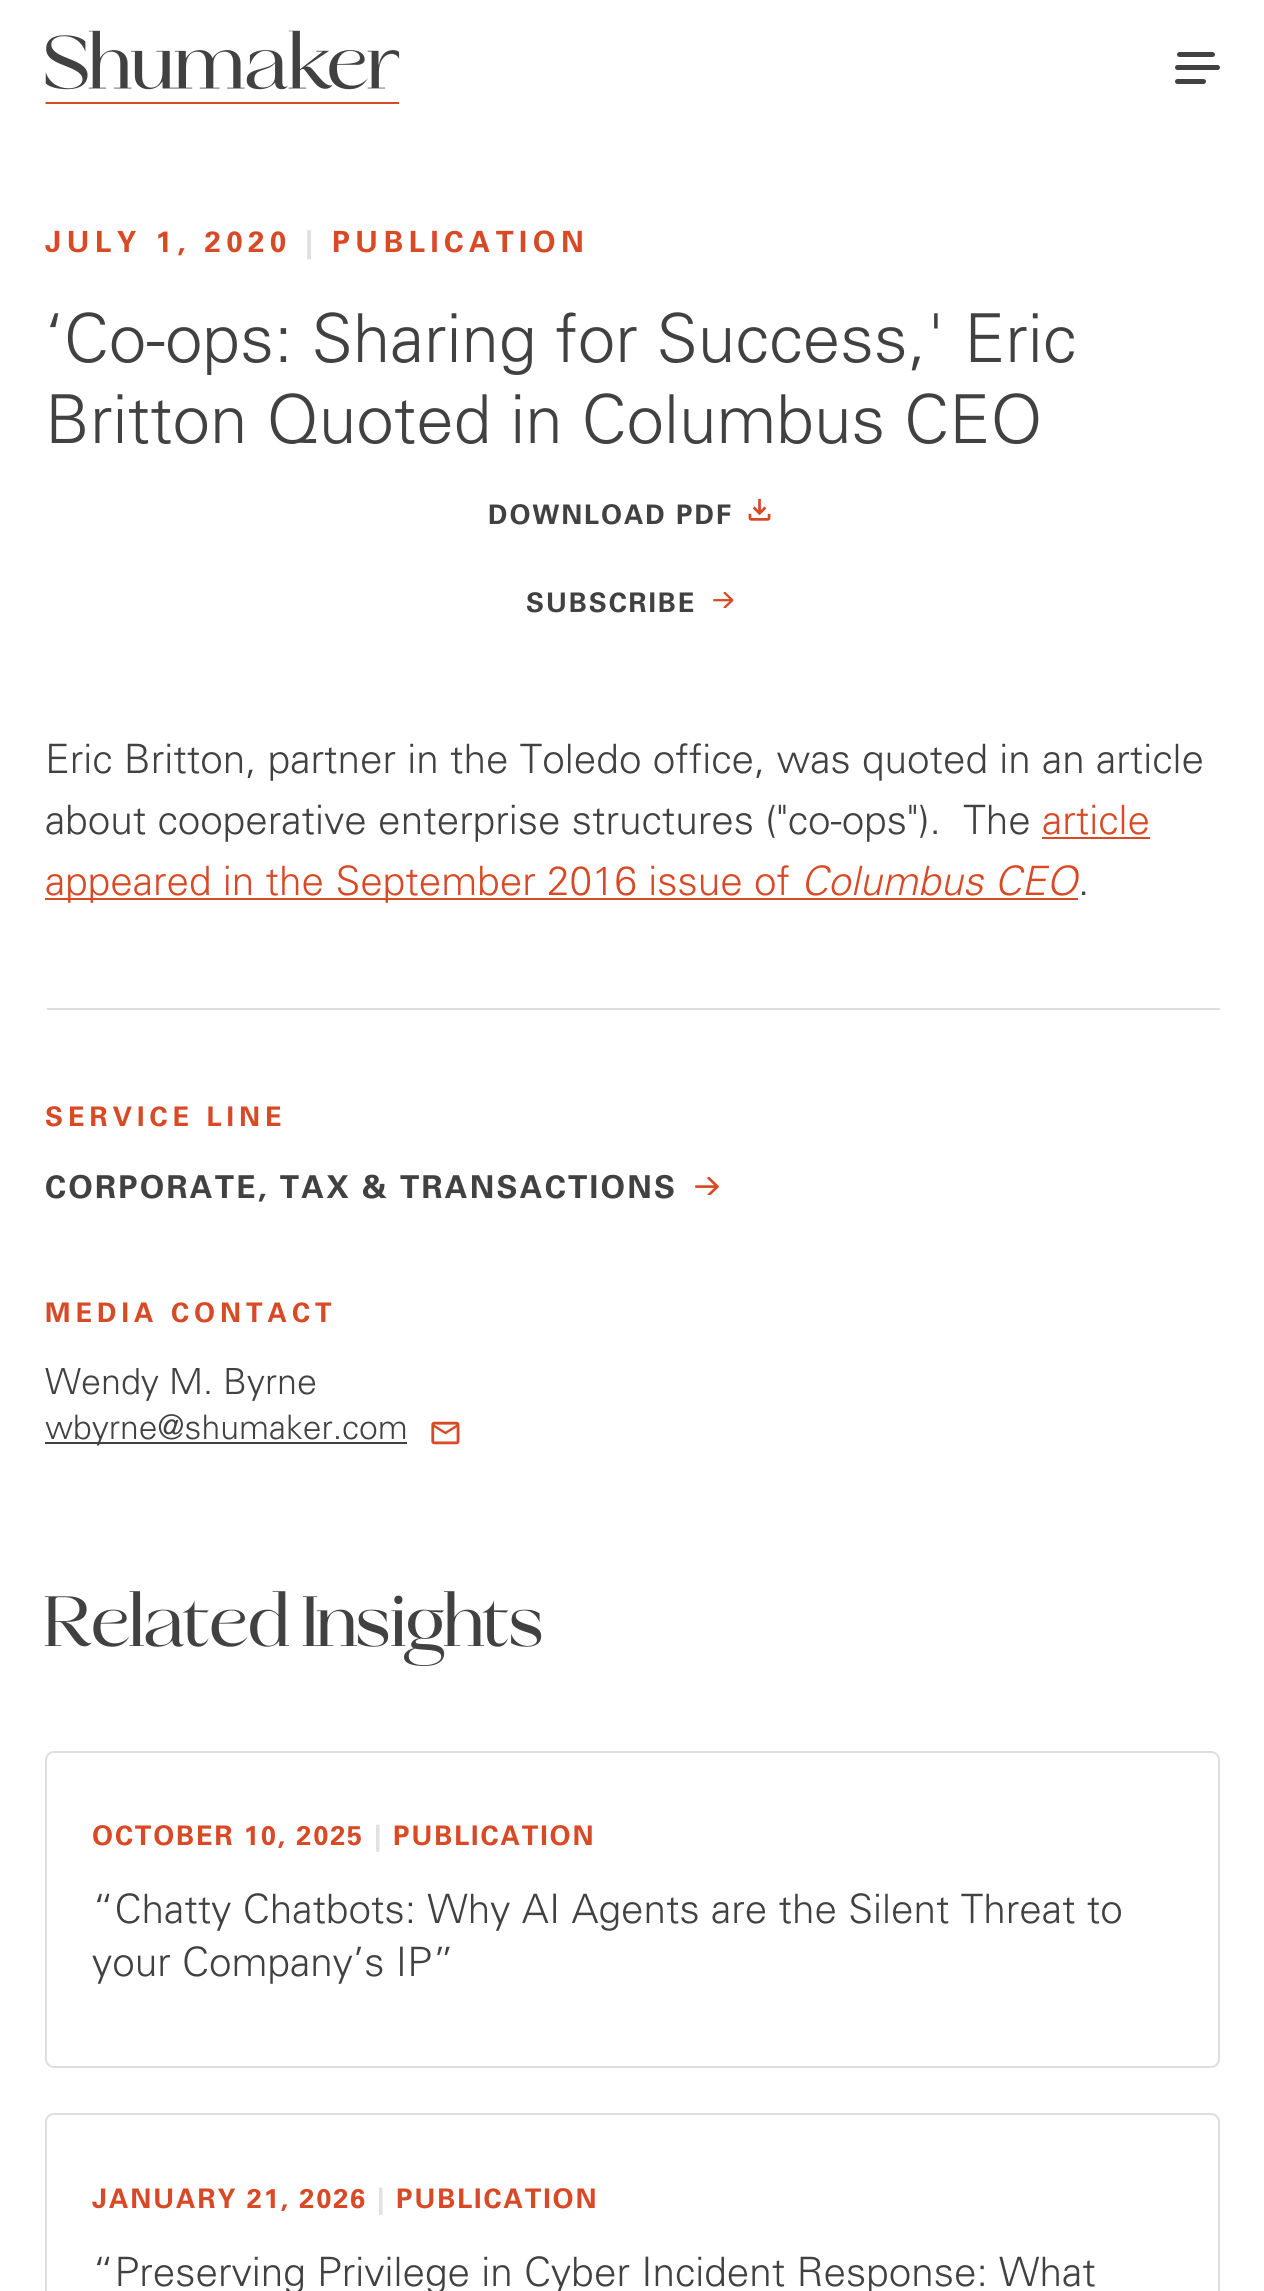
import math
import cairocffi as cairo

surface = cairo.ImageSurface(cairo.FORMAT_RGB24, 1264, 2291)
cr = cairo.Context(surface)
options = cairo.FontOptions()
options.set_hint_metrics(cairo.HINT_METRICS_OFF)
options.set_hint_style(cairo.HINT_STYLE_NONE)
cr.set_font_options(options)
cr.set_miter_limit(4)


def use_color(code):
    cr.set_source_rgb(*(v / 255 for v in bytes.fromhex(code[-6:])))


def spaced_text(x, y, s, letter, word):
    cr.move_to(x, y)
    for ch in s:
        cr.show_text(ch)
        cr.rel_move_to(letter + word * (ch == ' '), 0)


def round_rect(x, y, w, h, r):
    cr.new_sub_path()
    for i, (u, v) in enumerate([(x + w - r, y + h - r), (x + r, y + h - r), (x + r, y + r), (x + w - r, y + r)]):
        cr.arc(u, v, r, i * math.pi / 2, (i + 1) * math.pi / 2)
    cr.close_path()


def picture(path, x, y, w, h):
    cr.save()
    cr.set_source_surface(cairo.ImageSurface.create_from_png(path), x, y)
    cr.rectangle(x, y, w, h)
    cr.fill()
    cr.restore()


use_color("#ffffff")
cr.paint()
picture("img1.png", 45, 30, 355, 74)
use_color("#414141")
round_rect(1177, 52, 38, 5, 2.5)
cr.fill()
round_rect(1175, 65, 45, 5, 2.5)
cr.fill()
round_rect(1175, 79, 31, 5, 2.5)
cr.fill()
cr.select_font_face("Univers", cairo.FONT_SLANT_NORMAL, cairo.FONT_WEIGHT_BOLD)
cr.set_font_size(29.25)
use_color("#d84926")
spaced_text(45, 252, "JULY 1, 2020", 5.5, 0)
use_color("#e1e1e1")
spaced_text(305, 252, "|", 5.5, 0)
use_color("#d84926")
spaced_text(332, 252, "PUBLICATION", 5.5, 0)
cr.select_font_face("Univers Light")
cr.set_font_size(67.5)
use_color("#414141")
cr.move_to(45, 362)
cr.show_text("‘Co-ops: Sharing for Success,' Eric")
cr.move_to(45, 443)
cr.show_text("Britton Quoted in Columbus CEO")
cr.select_font_face("Univers", cairo.FONT_SLANT_NORMAL, cairo.FONT_WEIGHT_BOLD)
cr.set_font_size(27)
spaced_text(488, 524, "DOWNLOAD PDF", 1.9, 0)
picture("img2.png", 748, 498, 23, 23)
spaced_text(526, 612, "SUBSCRIBE", 1.9, 0)
picture("img3.png", 713, 592, 21, 16)
cr.select_font_face("Univers Light")
cr.set_font_size(40.5)
cr.move_to(45, 773)
cr.show_text("Eric Britton, partner in the Toledo office, was quoted in an article")
cr.move_to(45, 834)
cr.show_text("about cooperative enterprise structures (\"co-ops\").  The")
use_color("#d84926")
cr.move_to(1042, 834)
cr.show_text("article")
cr.rectangle(1042, 837, 108, 2)
cr.fill()
cr.rectangle(45, 898, 1033, 2)
cr.fill()
cr.move_to(45, 895)
cr.show_text("appeared in the September 2016 issue of")
cr.select_font_face("Univers Light", cairo.FONT_SLANT_ITALIC)
cr.move_to(801, 895)
cr.show_text("Columbus CEO")
cr.select_font_face("Univers Light")
use_color("#414141")
cr.move_to(1078, 895)
cr.show_text(".")
use_color("#dedede")
cr.rectangle(47, 1008, 1173, 2)
cr.fill()
cr.select_font_face("Univers", cairo.FONT_SLANT_NORMAL, cairo.FONT_WEIGHT_BOLD)
cr.set_font_size(27)
use_color("#d84926")
spaced_text(45, 1126, "SERVICE LINE", 5, 0)
cr.set_font_size(31.5)
use_color("#414141")
spaced_text(45, 1198, "CORPORATE, TAX & TRANSACTIONS", 2.25, 0)
picture("img4.png", 695, 1177, 24, 18)
cr.set_font_size(27)
use_color("#d84926")
spaced_text(45, 1322, "MEDIA CONTACT", 5, 0)
cr.select_font_face("Univers Light")
cr.set_font_size(36)
use_color("#414141")
cr.move_to(45, 1394)
cr.show_text("Wendy M. Byrne")
cr.rectangle(45, 1442, 362, 2)
cr.fill()
cr.set_font_size(33.75)
cr.move_to(45, 1439)
cr.show_text("wbyrne@shumaker.com")
picture("img5.png", 431, 1421, 29, 24)
cr.select_font_face("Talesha")
cr.set_font_size(72)
cr.move_to(45, 1646)
cr.show_text("Related Insights")
round_rect(46, 1752, 1173, 315, 8)
use_color("#dedede")
cr.stroke()
cr.select_font_face("Univers", cairo.FONT_SLANT_NORMAL, cairo.FONT_WEIGHT_BOLD)
cr.set_font_size(27)
use_color("#d84926")
spaced_text(92, 1845, "OCTOBER 10, 2025", 1.9, 0)
use_color("#e1e1e1")
spaced_text(374, 1845, "|", 1.9, 0)
use_color("#d84926")
spaced_text(393, 1845, "PUBLICATION", 1.9, 0)
cr.select_font_face("Univers Light")
cr.set_font_size(40.5)
use_color("#414141")
cr.move_to(92, 1923)
cr.show_text("“Chatty Chatbots: Why AI Agents are the Silent Threat to")
cr.move_to(92, 1976)
cr.show_text("your Company’s IP”")
round_rect(46, 2114, 1173, 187, 8)
use_color("#dedede")
cr.stroke()
cr.select_font_face("Univers", cairo.FONT_SLANT_NORMAL, cairo.FONT_WEIGHT_BOLD)
cr.set_font_size(27)
use_color("#d84926")
spaced_text(92, 2208, "JANUARY 21, 2026", 1.9, 0)
use_color("#e1e1e1")
spaced_text(377, 2208, "|", 1.9, 0)
use_color("#d84926")
spaced_text(396, 2208, "PUBLICATION", 1.9, 0)
cr.select_font_face("Univers Light")
cr.set_font_size(40.5)
use_color("#414141")
cr.move_to(92, 2286)
cr.show_text("“Preserving Privilege in Cyber Incident Response: What")
surface.write_to_png("result.png")
